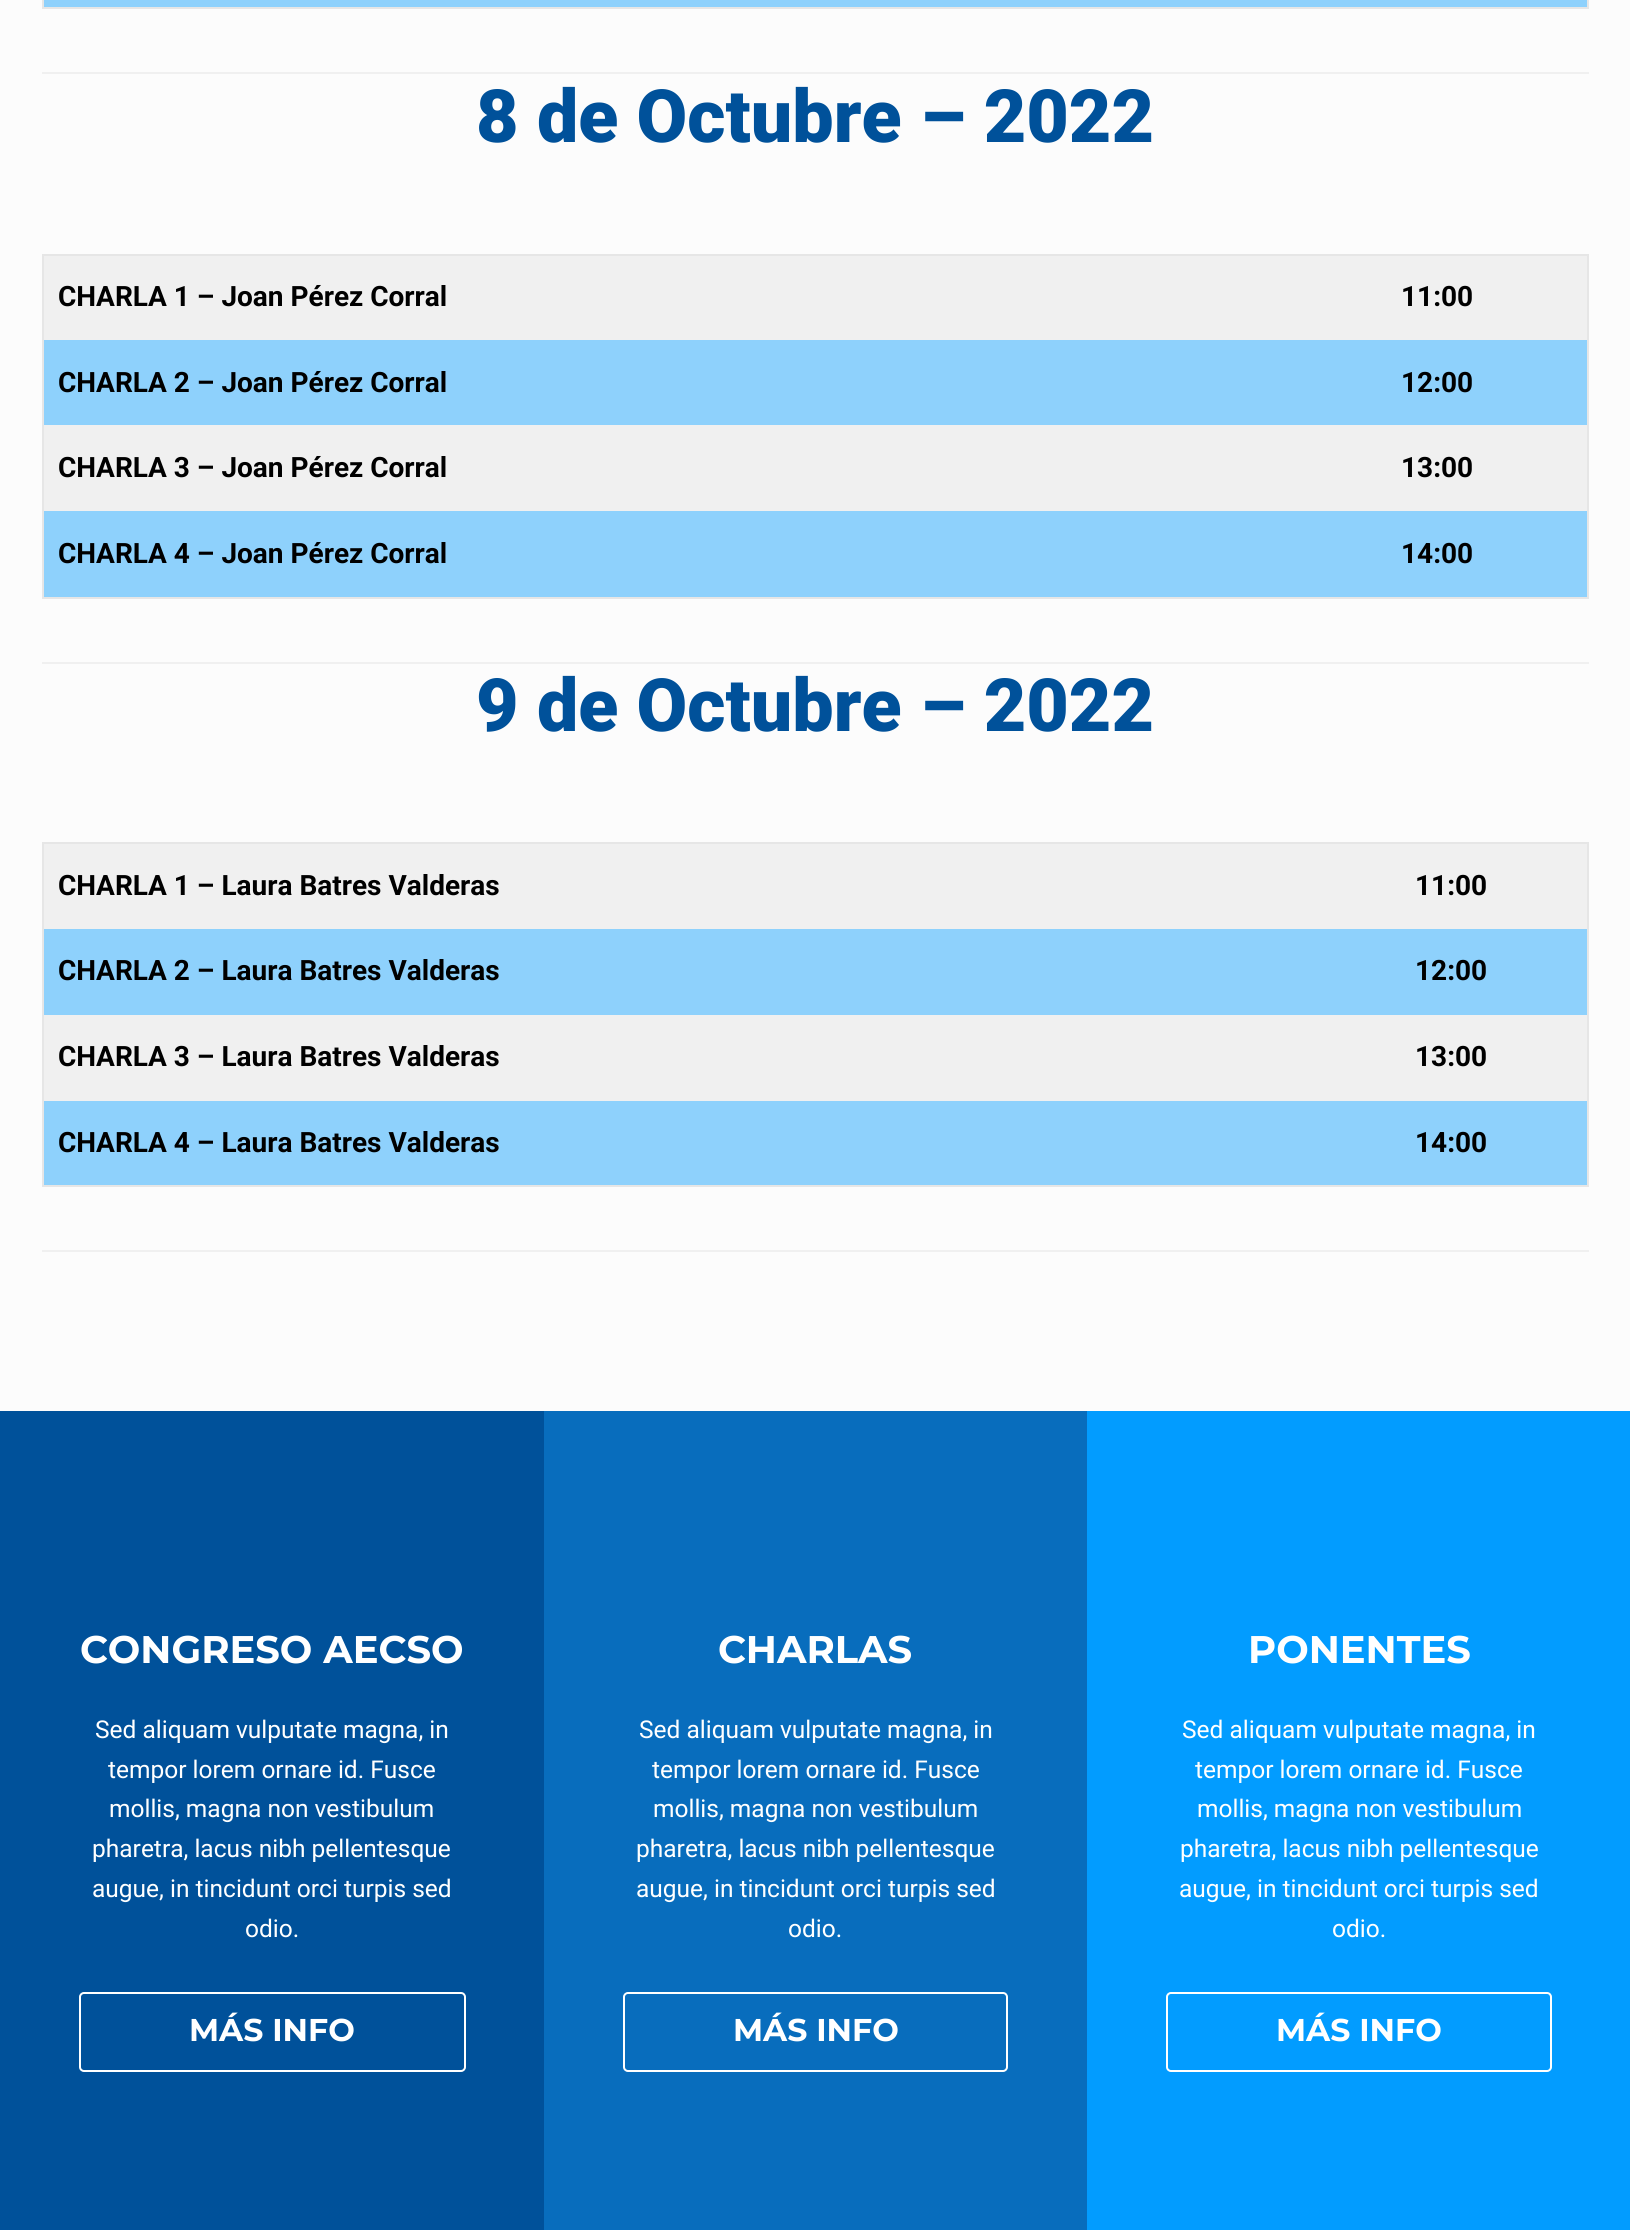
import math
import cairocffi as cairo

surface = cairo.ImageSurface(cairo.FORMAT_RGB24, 1630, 2230)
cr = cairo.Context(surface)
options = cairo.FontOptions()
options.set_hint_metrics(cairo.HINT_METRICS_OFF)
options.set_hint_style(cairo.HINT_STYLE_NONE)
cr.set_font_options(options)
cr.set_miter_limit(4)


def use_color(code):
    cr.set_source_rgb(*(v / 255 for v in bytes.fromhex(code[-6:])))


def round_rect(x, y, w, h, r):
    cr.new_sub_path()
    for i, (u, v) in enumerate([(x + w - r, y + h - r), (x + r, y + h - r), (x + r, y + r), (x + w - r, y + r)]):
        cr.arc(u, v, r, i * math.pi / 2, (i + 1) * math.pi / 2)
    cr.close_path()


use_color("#fcfcfc")
cr.paint()
use_color("#f0f0f0")
cr.rectangle(42, 72, 1547, 2)
cr.fill()
use_color("#8ed1fc")
cr.rectangle(44, 0, 1543, 7)
cr.fill()
use_color("#e6e6e6")
cr.rectangle(1587, 0, 2, 9)
cr.fill()
cr.rectangle(42, 7, 1547, 2)
cr.fill()
cr.rectangle(42, 0, 2, 9)
cr.fill()
cr.select_font_face("Roboto Black")
cr.set_font_size(73.5)
use_color("#00519a")
cr.move_to(476, 142)
cr.show_text("8 de Octubre – 2022")
use_color("#f0f0f0")
cr.rectangle(42, 662, 1547, 2)
cr.fill()
use_color("#8ed1fc")
cr.rectangle(44, 340, 1543, 257)
cr.fill()
use_color("#e6e6e6")
cr.rectangle(42, 254, 1547, 2)
cr.fill()
cr.rectangle(1587, 254, 2, 345)
cr.fill()
cr.rectangle(42, 597, 1547, 2)
cr.fill()
cr.rectangle(42, 254, 2, 345)
cr.fill()
use_color("#f0f0f0")
cr.rectangle(44, 256, 1543, 84)
cr.fill()
cr.select_font_face("Roboto", cairo.FONT_SLANT_NORMAL, cairo.FONT_WEIGHT_BOLD)
cr.set_font_size(28)
use_color("#000000")
cr.move_to(58, 306)
cr.show_text("CHARLA 1 – Joan Pérez Corral")
cr.move_to(1401, 306)
cr.show_text("11:00")
cr.move_to(58, 392)
cr.show_text("CHARLA 2 – Joan Pérez Corral")
cr.move_to(1401, 392)
cr.show_text("12:00")
use_color("#f0f0f0")
cr.rectangle(44, 425, 1543, 86)
cr.fill()
use_color("#000000")
cr.move_to(58, 477)
cr.show_text("CHARLA 3 – Joan Pérez Corral")
cr.move_to(1401, 477)
cr.show_text("13:00")
cr.move_to(58, 563)
cr.show_text("CHARLA 4 – Joan Pérez Corral")
cr.move_to(1401, 563)
cr.show_text("14:00")
cr.select_font_face("Roboto Black")
cr.set_font_size(73.5)
use_color("#00519a")
cr.move_to(476, 731)
cr.show_text("9 de Octubre – 2022")
use_color("#f0f0f0")
cr.rectangle(42, 1250, 1547, 2)
cr.fill()
use_color("#8ed1fc")
cr.rectangle(44, 929, 1543, 256)
cr.fill()
use_color("#e6e6e6")
cr.rectangle(42, 842, 1547, 2)
cr.fill()
cr.rectangle(1587, 842, 2, 345)
cr.fill()
cr.rectangle(42, 1185, 1547, 2)
cr.fill()
cr.rectangle(42, 842, 2, 345)
cr.fill()
use_color("#f0f0f0")
cr.rectangle(44, 844, 1543, 85)
cr.fill()
cr.select_font_face("Roboto", cairo.FONT_SLANT_NORMAL, cairo.FONT_WEIGHT_BOLD)
cr.set_font_size(28)
use_color("#000000")
cr.move_to(58, 895)
cr.show_text("CHARLA 1 – Laura Batres Valderas")
cr.move_to(1415, 895)
cr.show_text("11:00")
cr.move_to(58, 980)
cr.show_text("CHARLA 2 – Laura Batres Valderas")
cr.move_to(1415, 980)
cr.show_text("12:00")
use_color("#f0f0f0")
cr.rectangle(44, 1015, 1543, 86)
cr.fill()
use_color("#000000")
cr.move_to(58, 1066)
cr.show_text("CHARLA 3 – Laura Batres Valderas")
cr.move_to(1415, 1066)
cr.show_text("13:00")
cr.move_to(58, 1152)
cr.show_text("CHARLA 4 – Laura Batres Valderas")
cr.move_to(1415, 1152)
cr.show_text("14:00")
use_color("#00519a")
cr.rectangle(0, 1411, 544, 819)
cr.fill()
cr.select_font_face("Montserrat Thin")
cr.set_font_size(38.5)
use_color("#ffffff")
cr.move_to(80, 1663)
cr.show_text("CONGRESO AECSO")
cr.select_font_face("Roboto")
cr.set_font_size(24.5)
cr.move_to(95, 1738)
cr.show_text("Sed aliquam vulputate magna, in")
cr.move_to(108, 1778)
cr.show_text("tempor lorem ornare id. Fusce")
cr.move_to(109, 1817)
cr.show_text("mollis, magna non vestibulum")
cr.move_to(92, 1857)
cr.show_text("pharetra, lacus nibh pellentesque")
cr.move_to(92, 1897)
cr.show_text("augue, in tincidunt orci turpis sed")
cr.move_to(245, 1937)
cr.show_text("odio.")
round_rect(80, 1993, 385, 78, 4)
cr.stroke()
cr.select_font_face("Montserrat Thin")
cr.set_font_size(31.5)
cr.move_to(189, 2041)
cr.show_text("MÁS INFO")
use_color("#086dbd")
cr.rectangle(544, 1411, 543, 819)
cr.fill()
cr.set_font_size(38.5)
use_color("#ffffff")
cr.move_to(718, 1663)
cr.show_text("CHARLAS")
cr.select_font_face("Roboto")
cr.set_font_size(24.5)
cr.move_to(639, 1738)
cr.show_text("Sed aliquam vulputate magna, in")
cr.move_to(652, 1778)
cr.show_text("tempor lorem ornare id. Fusce")
cr.move_to(653, 1817)
cr.show_text("mollis, magna non vestibulum")
cr.move_to(636, 1857)
cr.show_text("pharetra, lacus nibh pellentesque")
cr.move_to(636, 1897)
cr.show_text("augue, in tincidunt orci turpis sed")
cr.move_to(788, 1937)
cr.show_text("odio.")
round_rect(624, 1993, 383, 78, 4)
cr.stroke()
cr.select_font_face("Montserrat Thin")
cr.set_font_size(31.5)
cr.move_to(733, 2041)
cr.show_text("MÁS INFO")
use_color("#029cff")
cr.rectangle(1087, 1411, 543, 819)
cr.fill()
cr.set_font_size(38.5)
use_color("#ffffff")
cr.move_to(1248, 1663)
cr.show_text("PONENTES")
cr.select_font_face("Roboto")
cr.set_font_size(24.5)
cr.move_to(1182, 1738)
cr.show_text("Sed aliquam vulputate magna, in")
cr.move_to(1195, 1778)
cr.show_text("tempor lorem ornare id. Fusce")
cr.move_to(1197, 1817)
cr.show_text("mollis, magna non vestibulum")
cr.move_to(1180, 1857)
cr.show_text("pharetra, lacus nibh pellentesque")
cr.move_to(1179, 1897)
cr.show_text("augue, in tincidunt orci turpis sed")
cr.move_to(1332, 1937)
cr.show_text("odio.")
round_rect(1167, 1993, 384, 78, 4)
cr.stroke()
cr.select_font_face("Montserrat Thin")
cr.set_font_size(31.5)
cr.move_to(1276, 2041)
cr.show_text("MÁS INFO")
surface.write_to_png("result.png")
